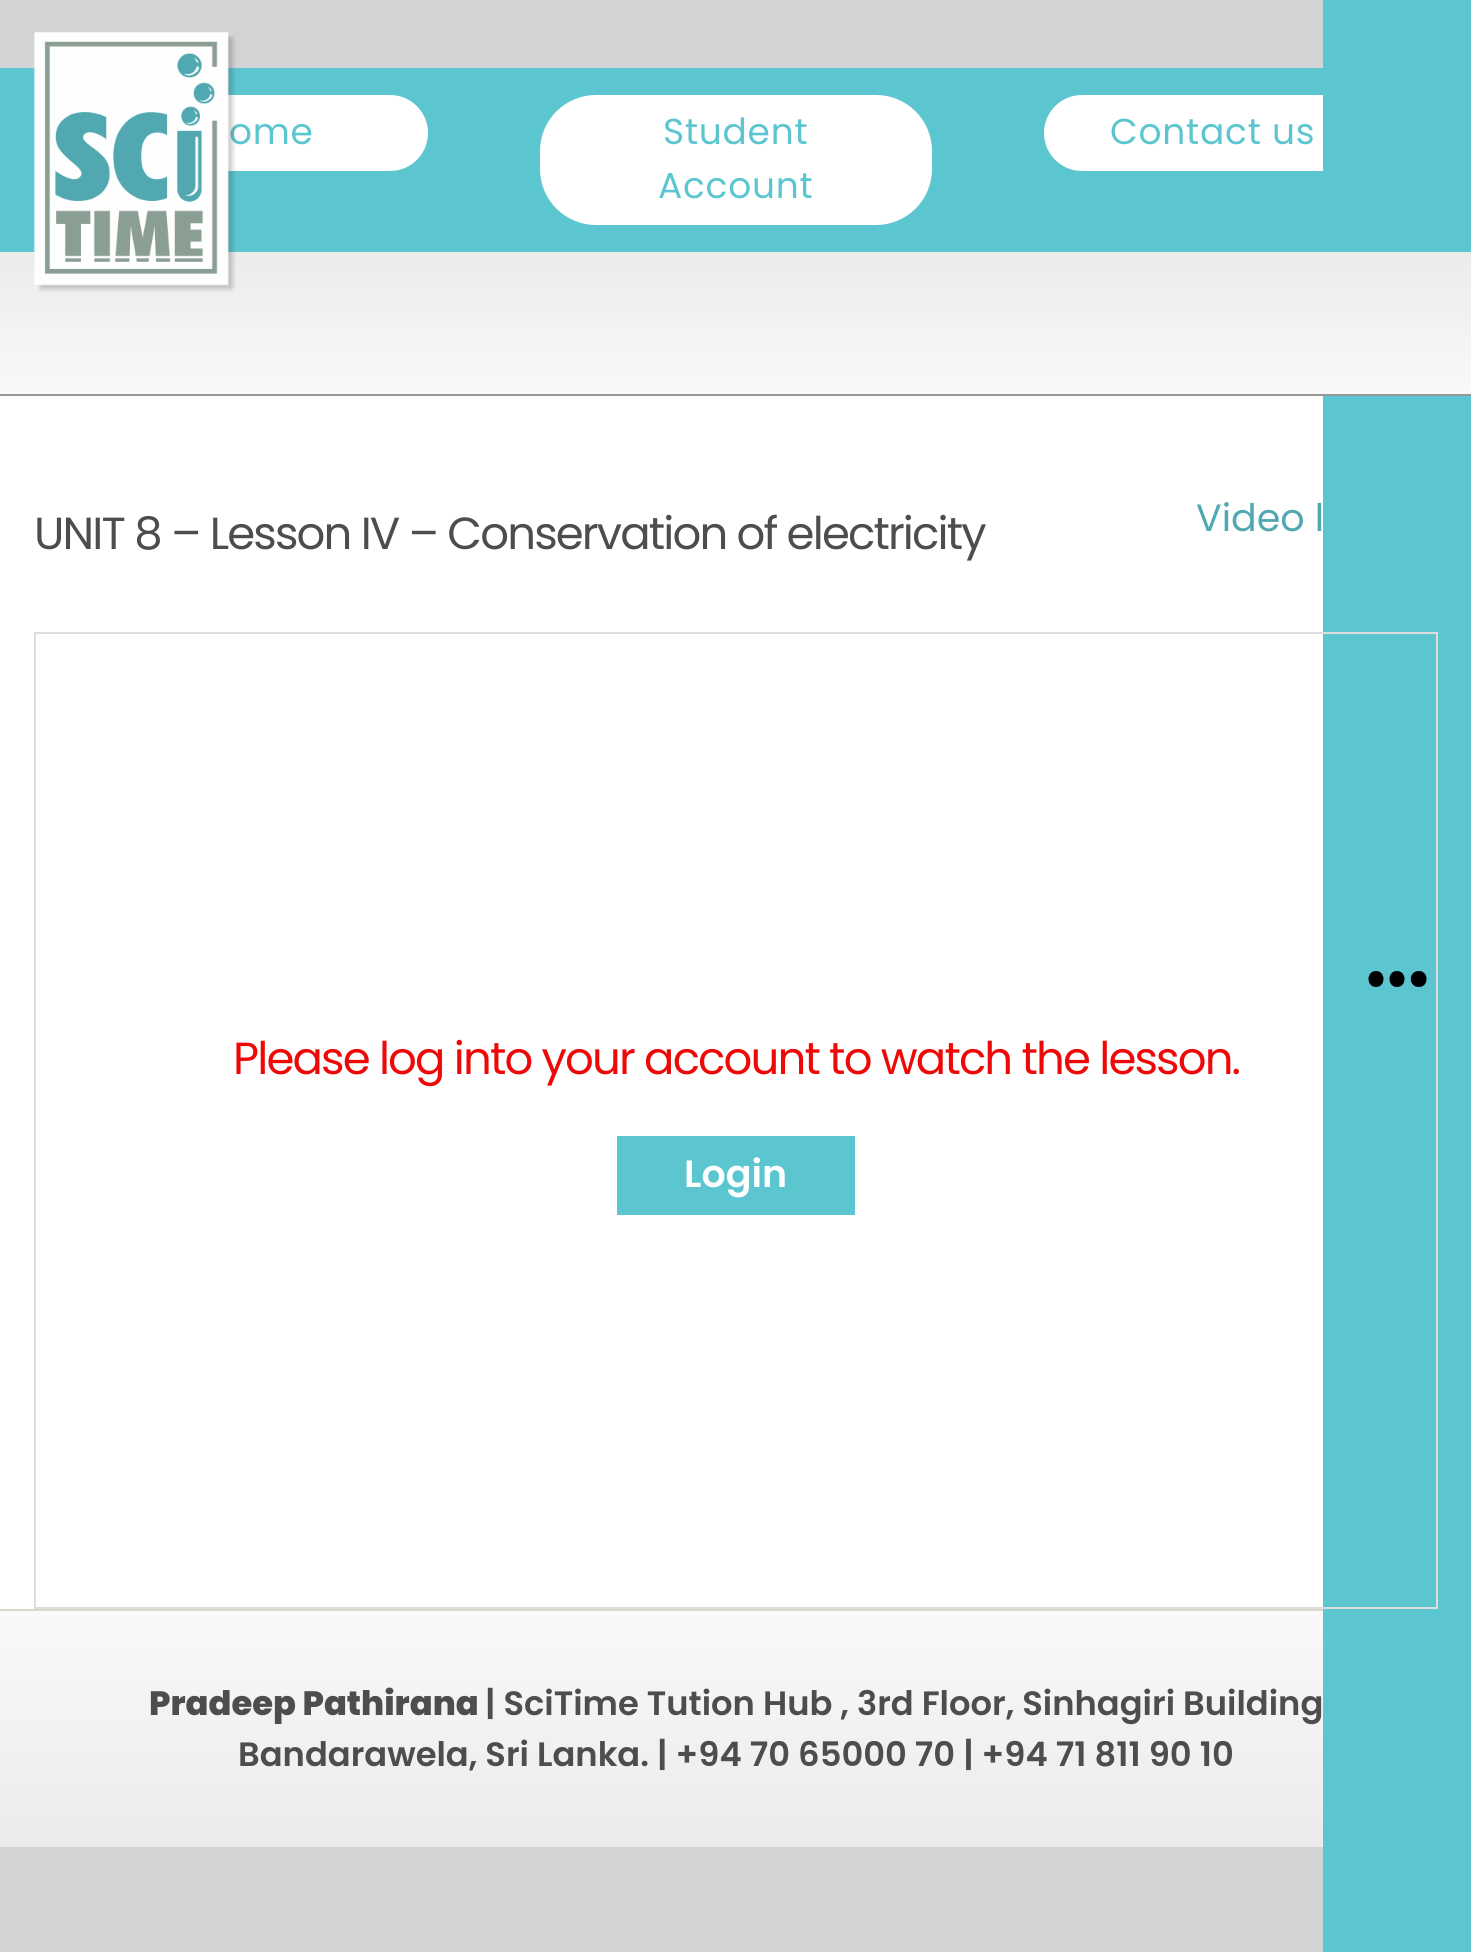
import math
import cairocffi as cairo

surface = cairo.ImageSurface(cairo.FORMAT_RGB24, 1471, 1952)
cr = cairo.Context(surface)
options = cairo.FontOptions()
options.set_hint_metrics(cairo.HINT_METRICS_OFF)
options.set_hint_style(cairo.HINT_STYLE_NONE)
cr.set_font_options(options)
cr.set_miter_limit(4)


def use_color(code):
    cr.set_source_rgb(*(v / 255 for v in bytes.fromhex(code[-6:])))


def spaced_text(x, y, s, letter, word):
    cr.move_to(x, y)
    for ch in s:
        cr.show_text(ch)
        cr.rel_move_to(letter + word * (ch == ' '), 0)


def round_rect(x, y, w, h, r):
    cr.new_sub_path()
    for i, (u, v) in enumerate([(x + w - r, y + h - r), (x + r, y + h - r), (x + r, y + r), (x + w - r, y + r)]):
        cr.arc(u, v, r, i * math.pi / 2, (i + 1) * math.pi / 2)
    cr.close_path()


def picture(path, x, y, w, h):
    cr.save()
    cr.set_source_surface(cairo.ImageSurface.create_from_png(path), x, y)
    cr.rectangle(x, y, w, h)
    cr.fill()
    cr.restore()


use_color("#d2d3d5")
cr.paint()
use_color("#5cc6d0")
cr.rectangle(0, 68, 1323, 184)
cr.fill()
use_color("#ffffff")
round_rect(90, 95, 338, 76, 38)
cr.fill()
cr.select_font_face("Poppins")
cr.set_font_size(36)
use_color("#5cc6d0")
spaced_text(229, 144, "ome", 0.75, 0)
use_color("#ffffff")
round_rect(1044, 95, 338, 76, 38)
cr.fill()
use_color("#5cc6d0")
cr.rectangle(1323, 0, 148, 1952)
cr.fill()
gradient = cairo.LinearGradient(736, 252, 736, 394)
gradient.add_color_stop_rgba(0, 0.922, 0.922, 0.922, 1)
gradient.add_color_stop_rgba(1, 0.976, 0.976, 0.976, 1)
cr.set_source(gradient)
cr.rectangle(0, 252, 1471, 142)
cr.fill()
picture("img1.png", 33, 32, 203, 260)
use_color("#ffffff")
round_rect(540, 95, 392, 130, 56)
cr.fill()
use_color("#5cc6d0")
spaced_text(663, 144, "Student", 0.75, 0)
spaced_text(658, 198, "Account", 0.75, 0)
spaced_text(1110, 144, "Contact us", 0.75, 0)
use_color("#000000")
cr.set_fill_rule(cairo.FILL_RULE_EVEN_ODD)
cr.new_path()
cr.move_to(1376, 987)
cr.curve_to(1366, 987, 1366, 971, 1376, 971)
cr.curve_to(1386, 971, 1386, 987, 1376, 987)
cr.close_path()
cr.move_to(1397, 987)
cr.curve_to(1387, 987, 1387, 971, 1397, 971)
cr.curve_to(1407, 971, 1407, 987, 1397, 987)
cr.close_path()
cr.move_to(1419, 987)
cr.curve_to(1408, 987, 1408, 971, 1419, 971)
cr.curve_to(1429, 971, 1429, 987, 1419, 987)
cr.close_path()
cr.fill()
use_color("#96989a")
cr.rectangle(0, 394, 1471, 2)
cr.fill()
use_color("#ffffff")
cr.rectangle(0, 396, 1323, 1213)
cr.fill()
cr.set_font_size(45)
use_color("#4d4d4d")
spaced_text(34, 549, "UNIT 8 – Lesson IV – Conservation of electricity", -1.85, 0)
cr.set_font_size(38)
use_color("#51a8b1")
cr.move_to(1196, 531)
cr.show_text("Video l")
cr.rectangle(35, 633, 1402, 975)
use_color("#dddddd")
cr.stroke()
cr.set_font_size(45)
use_color("#ee0909")
spaced_text(233, 1074, "Please log into your account to watch the lesson.", -1.85, 0)
use_color("#5cc6d0")
cr.rectangle(617, 1136, 238, 79)
cr.fill()
cr.select_font_face("Poppins SemiBold")
cr.set_font_size(38)
use_color("#ffffff")
cr.move_to(684, 1187)
cr.show_text("Login")
gradient = cairo.LinearGradient(736, 1847, 736, 1611)
gradient.add_color_stop_rgba(0, 0.922, 0.922, 0.922, 1)
gradient.add_color_stop_rgba(1, 0.976, 0.976, 0.976, 1)
cr.set_source(gradient)
cr.rectangle(0, 1611, 1323, 236)
cr.fill()
use_color("#dcd7ca")
cr.rectangle(0, 1609, 1323, 2)
cr.fill()
cr.select_font_face("Poppins ExtraBold")
cr.set_font_size(33.75)
use_color("#4d4d4d")
cr.move_to(149, 1715)
cr.show_text("Pradeep Pathirana")
cr.select_font_face("Poppins SemiBold")
cr.move_to(485, 1715)
cr.show_text("| SciTime Tution Hub , 3rd Floor, Sinhagiri Building")
cr.move_to(238, 1766)
cr.show_text("Bandarawela, Sri Lanka. | +94 70 65000 70 | +94 71 811 90 10")
surface.write_to_png("result.png")
